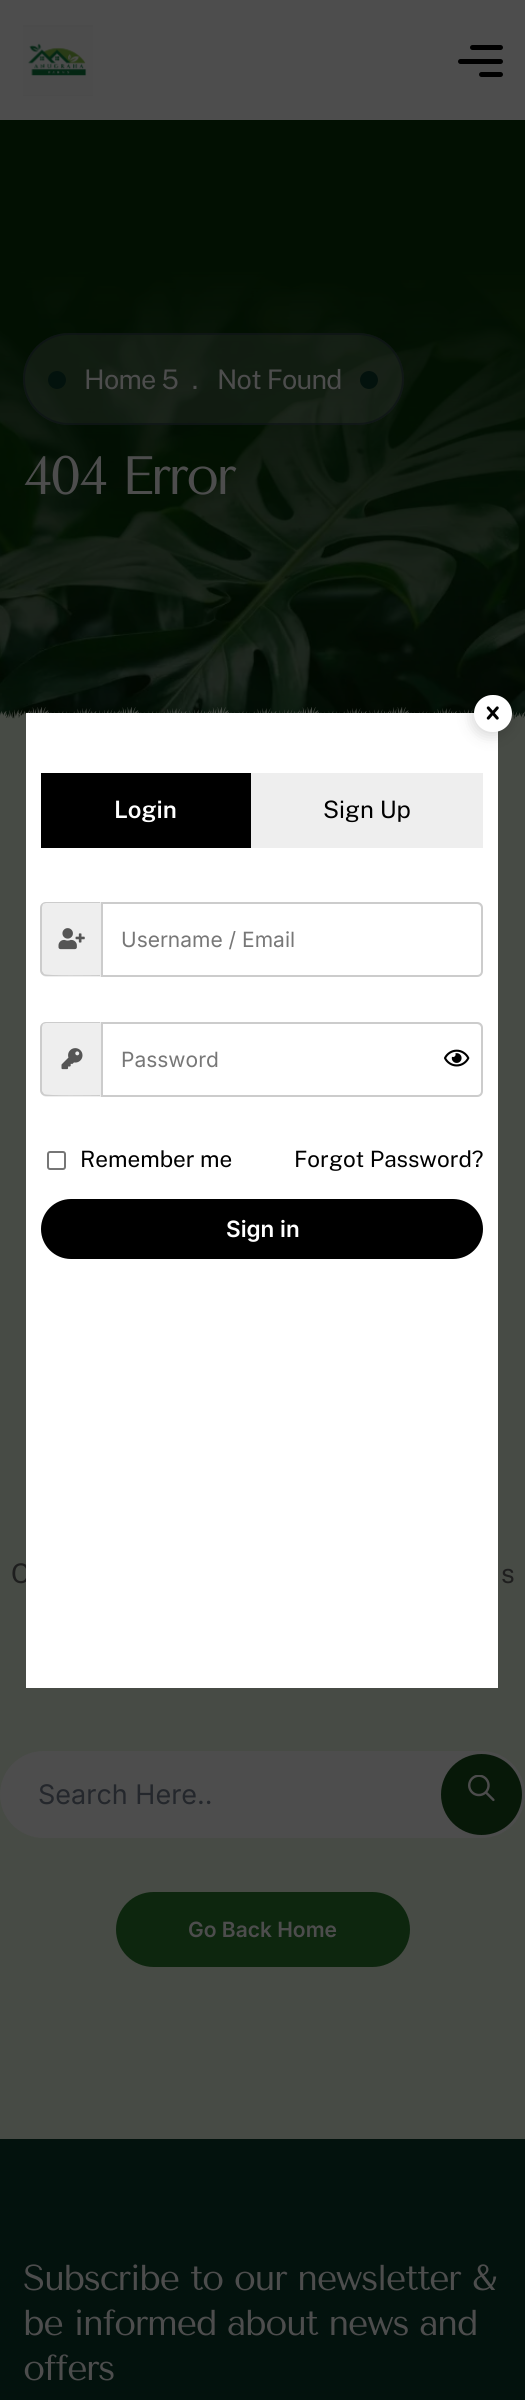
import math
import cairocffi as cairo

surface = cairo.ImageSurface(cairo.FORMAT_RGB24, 525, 2400)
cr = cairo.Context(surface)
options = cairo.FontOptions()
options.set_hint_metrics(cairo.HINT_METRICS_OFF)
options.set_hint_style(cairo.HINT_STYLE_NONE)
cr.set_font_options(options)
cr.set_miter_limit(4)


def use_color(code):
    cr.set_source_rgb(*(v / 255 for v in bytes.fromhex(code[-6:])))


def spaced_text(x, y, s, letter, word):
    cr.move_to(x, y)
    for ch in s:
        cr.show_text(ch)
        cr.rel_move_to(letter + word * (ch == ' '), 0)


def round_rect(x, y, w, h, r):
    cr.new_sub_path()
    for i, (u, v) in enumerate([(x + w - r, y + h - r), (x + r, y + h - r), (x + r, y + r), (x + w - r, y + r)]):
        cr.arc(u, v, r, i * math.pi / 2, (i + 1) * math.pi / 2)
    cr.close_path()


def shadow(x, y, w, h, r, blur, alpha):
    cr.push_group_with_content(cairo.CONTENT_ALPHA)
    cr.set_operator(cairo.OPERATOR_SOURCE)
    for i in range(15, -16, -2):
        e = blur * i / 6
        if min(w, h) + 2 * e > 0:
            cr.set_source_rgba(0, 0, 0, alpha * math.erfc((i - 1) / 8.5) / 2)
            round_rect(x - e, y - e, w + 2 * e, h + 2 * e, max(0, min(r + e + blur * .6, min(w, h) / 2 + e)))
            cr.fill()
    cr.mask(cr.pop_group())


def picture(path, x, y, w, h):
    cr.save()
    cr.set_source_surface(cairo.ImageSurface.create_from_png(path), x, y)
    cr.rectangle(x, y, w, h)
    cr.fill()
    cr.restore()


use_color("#4d4d4d")
cr.paint()
picture("img1.png", 23, 25, 70, 71)
use_color("#000000")
round_rect(470, 45, 33, 5, 2.5)
cr.fill()
round_rect(458, 59, 45, 5, 2.5)
cr.fill()
round_rect(479, 72, 24, 5, 2.5)
cr.fill()
picture("img2.png", 0, 120, 525, 600)
cr.set_source_rgba(0.302, 0.302, 0.302, 0.2)
round_rect(23, 333, 381, 92, 46)
cr.fill()
round_rect(24, 334, 379, 90, 45)
cr.set_source_rgba(0.051, 0.071, 0.09, 0.6)
cr.stroke()
use_color("#03120d")
cr.arc(57, 380, 9, 0, 2 * math.pi)
cr.fill()
cr.select_font_face("Public Sans")
cr.set_font_size(27)
use_color("#4d4d4d")
spaced_text(84, 389, "Home 5", -0.75, 0)
spaced_text(192, 389, ".", -0.75, 0)
spaced_text(217, 389, "Not Found", -0.75, 0)
use_color("#03120d")
cr.new_path()
cr.arc(369, 380, 9, 0, 2 * math.pi)
cr.fill()
cr.select_font_face("Tenor Sans")
cr.set_font_size(54)
use_color("#4d4d4d")
spaced_text(23, 494, "404 Error", -3, 0)
picture("img3.png", 0, 707, 525, 13)
use_color("#474b45")
cr.rectangle(0, 720, 525, 1419)
cr.fill()
cr.select_font_face("Public Sans")
cr.set_font_size(27)
use_color("#1e1e1e")
cr.move_to(11, 1583)
cr.show_text("O")
cr.move_to(501, 1583)
cr.show_text("s")
use_color("#4d4d4d")
round_rect(0, 1751, 525, 87, 43.5)
cr.fill()
cr.select_font_face("Inter")
use_color("#24272c")
cr.move_to(38, 1804)
cr.show_text("Search Here..")
use_color("#071808")
cr.new_path()
cr.arc(481.5, 1794.5, 40.5, 0, 2 * math.pi)
cr.fill()
picture("img4.png", 468, 1775, 27, 27)
use_color("#0d260e")
round_rect(116, 1892, 294, 75, 37.5)
cr.fill()
cr.select_font_face("Inter SemiBold")
cr.set_font_size(21)
use_color("#4d4d4d")
cr.move_to(188, 1937)
cr.show_text("Go Back Home")
use_color("#03120d")
cr.rectangle(0, 2139, 525, 261)
cr.fill()
cr.select_font_face("Tenor Sans")
cr.set_font_size(36)
use_color("#4d4d4d")
spaced_text(23, 2290, "Subscribe to our newsletter &", -1.5, 0)
spaced_text(23, 2335, "be informed about news and", -1.5, 0)
spaced_text(23, 2380, "offers", -1.5, 0)
use_color("#ffffff")
cr.rectangle(26, 713, 472, 975)
cr.fill()
use_color("#000000")
shadow(473, 698, 37, 37, 18.5, 7.5, 0.17)
use_color("#ffffff")
round_rect(474, 695, 38, 37, 18.5)
cr.fill()
picture("img5.png", 486, 706, 13, 14)
use_color("#000000")
cr.rectangle(41, 773, 210, 75)
cr.fill()
cr.select_font_face("Public Sans SemiBold")
cr.set_font_size(24)
use_color("#ffffff")
cr.move_to(114, 818)
cr.show_text("Login")
use_color("#eeeeee")
cr.rectangle(251, 773, 232, 75)
cr.fill()
cr.select_font_face("Public Sans")
use_color("#000000")
cr.move_to(323, 818)
cr.show_text("Sign Up")
use_color("#eeeeee")
cr.new_path()
cr.move_to(47, 902)
cr.line_to(101, 902)
cr.line_to(101, 977)
cr.line_to(47, 977)
cr.curve_to(43.5, 977, 41, 974.5, 41, 971)
cr.line_to(41, 908)
cr.curve_to(41, 904.5, 43.5, 902, 47, 902)
cr.close_path()
cr.fill()
use_color("#cccccc")
cr.set_fill_rule(cairo.FILL_RULE_EVEN_ODD)
cr.new_path()
cr.move_to(46, 902)
cr.line_to(100, 902)
cr.line_to(100, 976)
cr.line_to(46, 976)
cr.curve_to(43, 976, 40, 974, 40, 970)
cr.line_to(40, 908)
cr.curve_to(40, 904, 43, 902, 46, 902)
cr.close_path()
cr.move_to(46, 903)
cr.line_to(100, 903)
cr.line_to(100, 975)
cr.curve_to(94, 975, 47, 976, 44, 974)
cr.line_to(42, 971)
cr.line_to(42, 907)
cr.line_to(43, 904)
cr.close_path()
cr.fill()
picture("img6.png", 58, 928, 27, 22)
use_color("#ececec")
cr.set_fill_rule(cairo.FILL_RULE_WINDING)
cr.new_path()
cr.move_to(102, 904)
cr.line_to(477, 904)
cr.curve_to(479, 904, 482, 907, 482, 909)
cr.curve_to(482, 906, 480, 903, 477, 903)
cr.line_to(102, 903)
cr.close_path()
cr.fill()
cr.new_path()
cr.move_to(102, 903)
cr.line_to(477, 903)
cr.curve_to(480, 903, 482, 905, 482, 908)
cr.line_to(482, 971)
cr.curve_to(482, 974, 480, 976, 477, 976)
cr.line_to(102, 976)
cr.close_path()
use_color("#cccccc")
cr.stroke()
cr.select_font_face("Inter")
cr.set_font_size(21)
use_color("#777777")
cr.move_to(121, 947)
cr.show_text("Username / Email")
use_color("#eeeeee")
cr.new_path()
cr.move_to(47, 1022)
cr.line_to(101, 1022)
cr.line_to(101, 1097)
cr.line_to(47, 1097)
cr.curve_to(43.5, 1097, 41, 1094.5, 41, 1091)
cr.line_to(41, 1028)
cr.curve_to(41, 1024.5, 43.5, 1022, 47, 1022)
cr.close_path()
cr.fill()
use_color("#cccccc")
cr.set_fill_rule(cairo.FILL_RULE_EVEN_ODD)
cr.new_path()
cr.move_to(46, 1022)
cr.line_to(100, 1022)
cr.line_to(100, 1096)
cr.line_to(46, 1096)
cr.curve_to(43, 1096, 40, 1094, 40, 1090)
cr.line_to(40, 1028)
cr.curve_to(40, 1024, 43, 1022, 46, 1022)
cr.close_path()
cr.move_to(46, 1023)
cr.line_to(100, 1023)
cr.line_to(100, 1095)
cr.curve_to(94, 1095, 47, 1096, 44, 1094)
cr.line_to(42, 1091)
cr.line_to(42, 1027)
cr.line_to(43, 1024)
cr.close_path()
cr.fill()
picture("img7.png", 61, 1048, 22, 22)
use_color("#ececec")
cr.set_fill_rule(cairo.FILL_RULE_WINDING)
cr.new_path()
cr.move_to(102, 1024)
cr.line_to(477, 1024)
cr.curve_to(479, 1024, 482, 1027, 482, 1029)
cr.curve_to(482, 1026, 480, 1023, 477, 1023)
cr.line_to(102, 1023)
cr.close_path()
cr.fill()
cr.new_path()
cr.move_to(102, 1023)
cr.line_to(477, 1023)
cr.curve_to(480, 1023, 482, 1025, 482, 1028)
cr.line_to(482, 1091)
cr.curve_to(482, 1094, 480, 1096, 477, 1096)
cr.line_to(102, 1096)
cr.close_path()
use_color("#cccccc")
cr.stroke()
use_color("#777777")
cr.move_to(121, 1067)
cr.show_text("Password")
picture("img8.png", 444, 1049, 26, 18)
round_rect(48, 1152, 17, 17, 2)
use_color("#767676")
cr.stroke()
cr.select_font_face("Public Sans")
cr.set_font_size(22.5)
use_color("#000000")
cr.move_to(80, 1167)
cr.show_text("Remember me")
cr.move_to(294, 1167)
cr.show_text("Forgot Password?")
round_rect(42.5, 1200.5, 439, 57, 28.5)
cr.fill_preserve()
cr.set_line_width(3)
cr.stroke()
cr.select_font_face("Inter SemiBold")
use_color("#ffffff")
cr.move_to(226, 1237)
cr.show_text("Sign in")
surface.write_to_png("result.png")
